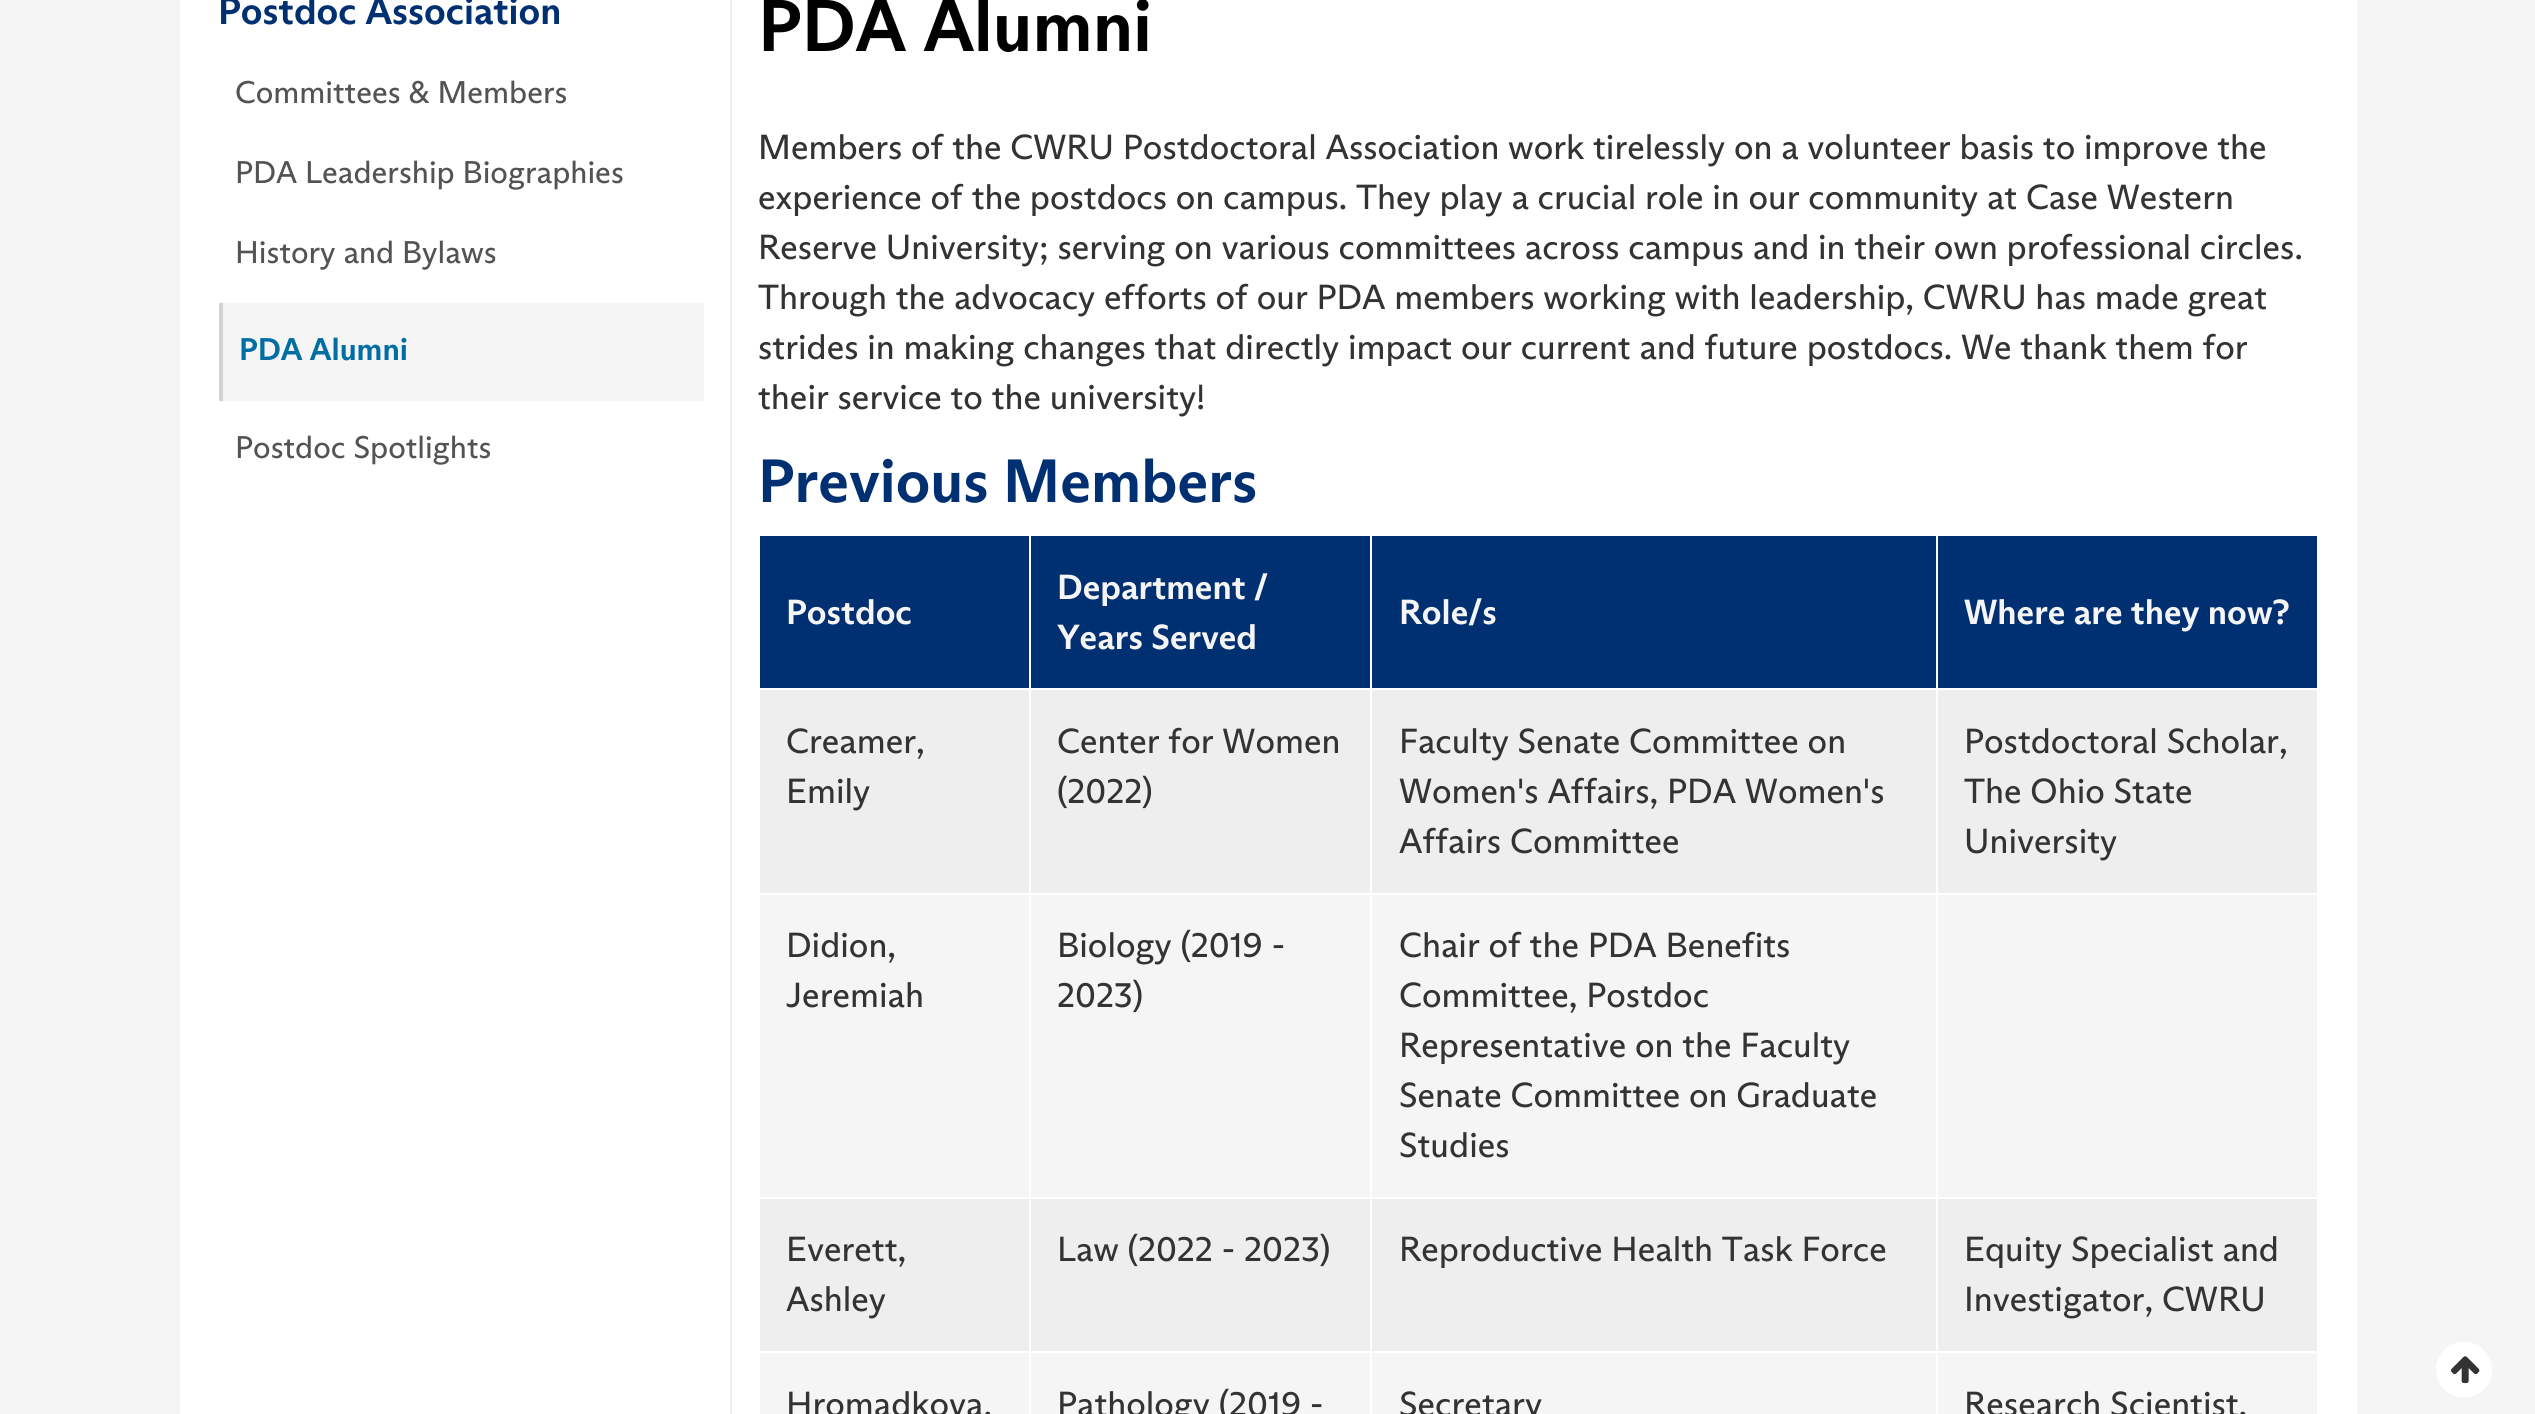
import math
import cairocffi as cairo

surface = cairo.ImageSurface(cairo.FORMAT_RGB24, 2535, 1414)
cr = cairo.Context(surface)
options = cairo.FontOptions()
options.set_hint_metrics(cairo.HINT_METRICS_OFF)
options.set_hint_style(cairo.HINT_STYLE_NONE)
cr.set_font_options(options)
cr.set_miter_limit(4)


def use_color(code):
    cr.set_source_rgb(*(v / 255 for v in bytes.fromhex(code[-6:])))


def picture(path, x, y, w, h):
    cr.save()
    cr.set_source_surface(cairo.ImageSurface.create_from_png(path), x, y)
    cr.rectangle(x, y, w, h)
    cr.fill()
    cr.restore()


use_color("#f5f5f5")
cr.paint()
use_color("#ffffff")
cr.rectangle(180, 0, 2177, 1414)
cr.fill()
cr.select_font_face("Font", cairo.FONT_SLANT_NORMAL, cairo.FONT_WEIGHT_BOLD)
cr.set_font_size(38.5)
use_color("#003071")
cr.move_to(218, 24)
cr.show_text("Postdoc Association")
cr.select_font_face("Font")
cr.set_font_size(31.5)
use_color("#535353")
cr.move_to(235, 103)
cr.show_text("Committees & Members")
cr.move_to(235, 183)
cr.show_text("PDA Leadership Biographies")
cr.move_to(235, 263)
cr.show_text("History and Bylaws")
use_color("#f5f5f5")
cr.rectangle(223, 303, 481, 98)
cr.fill()
use_color("#d3d3d3")
cr.rectangle(219, 303, 4, 98)
cr.fill()
cr.select_font_face("Font", cairo.FONT_SLANT_NORMAL, cairo.FONT_WEIGHT_BOLD)
use_color("#006da3")
cr.move_to(239, 360)
cr.show_text("PDA Alumni")
cr.select_font_face("Font")
use_color("#535353")
cr.move_to(235, 458)
cr.show_text("Postdoc Spotlights")
use_color("#eeeeee")
cr.rectangle(730, 0, 2, 1414)
cr.fill()
cr.select_font_face("Font", cairo.FONT_SLANT_NORMAL, cairo.FONT_WEIGHT_BOLD)
cr.set_font_size(73.5)
use_color("#000000")
cr.move_to(758, 51)
cr.show_text("PDA Alumni")
cr.select_font_face("Font")
cr.set_font_size(35)
use_color("#333333")
cr.move_to(758, 159)
cr.show_text("Members of the CWRU Postdoctoral Association work tirelessly on a volunteer basis to improve the")
cr.move_to(758, 209)
cr.show_text("experience of the postdocs on campus. They play a crucial role in our community at Case Western")
cr.move_to(758, 259)
cr.show_text("Reserve University; serving on various committees across campus and in their own professional circles.")
cr.move_to(758, 309)
cr.show_text("Through the advocacy efforts of our PDA members working with leadership, CWRU has made great")
cr.move_to(758, 359)
cr.show_text("strides in making changes that directly impact our current and future postdocs. We thank them for")
cr.move_to(758, 409)
cr.show_text("their service to the university!")
cr.select_font_face("Font", cairo.FONT_SLANT_NORMAL, cairo.FONT_WEIGHT_BOLD)
cr.set_font_size(61.25)
use_color("#003071")
cr.move_to(758, 502)
cr.show_text("Previous Members")
cr.rectangle(760, 536, 269, 152)
cr.fill()
cr.set_font_size(35)
use_color("#f5f5f5")
cr.move_to(786, 624)
cr.show_text("Postdoc")
use_color("#003071")
cr.rectangle(1031, 536, 339, 152)
cr.fill()
use_color("#f5f5f5")
cr.move_to(1057, 599)
cr.show_text("Department /")
cr.move_to(1057, 649)
cr.show_text("Years Served")
use_color("#003071")
cr.rectangle(1372, 536, 564, 152)
cr.fill()
use_color("#f5f5f5")
cr.move_to(1399, 624)
cr.show_text("Role/s")
use_color("#003071")
cr.rectangle(1938, 536, 379, 152)
cr.fill()
use_color("#f5f5f5")
cr.move_to(1964, 624)
cr.show_text("Where are they now?")
use_color("#eeeeee")
cr.rectangle(760, 690, 1557, 203)
cr.fill()
cr.select_font_face("Font")
use_color("#333333")
cr.move_to(786, 753)
cr.show_text("Creamer,")
cr.move_to(786, 803)
cr.show_text("Emily")
cr.move_to(1057, 753)
cr.show_text("Center for Women")
cr.move_to(1057, 803)
cr.show_text("(2022)")
cr.move_to(1399, 753)
cr.show_text("Faculty Senate Committee on")
cr.move_to(1399, 803)
cr.show_text("Women's Affairs, PDA Women's")
cr.move_to(1399, 853)
cr.show_text("Affairs Committee")
cr.move_to(1964, 753)
cr.show_text("Postdoctoral Scholar,")
cr.move_to(1964, 803)
cr.show_text("The Ohio State")
cr.move_to(1964, 853)
cr.show_text("University")
use_color("#f5f5f5")
cr.rectangle(760, 895, 1557, 302)
cr.fill()
use_color("#333333")
cr.move_to(786, 957)
cr.show_text("Didion,")
cr.move_to(786, 1007)
cr.show_text("Jeremiah")
cr.move_to(1057, 957)
cr.show_text("Biology (2019 -")
cr.move_to(1057, 1007)
cr.show_text("2023)")
cr.move_to(1399, 957)
cr.show_text("Chair of the PDA Benefits")
cr.move_to(1399, 1007)
cr.show_text("Committee, Postdoc")
cr.move_to(1399, 1057)
cr.show_text("Representative on the Faculty")
cr.move_to(1399, 1107)
cr.show_text("Senate Committee on Graduate")
cr.move_to(1399, 1157)
cr.show_text("Studies")
use_color("#eeeeee")
cr.rectangle(760, 1199, 1557, 152)
cr.fill()
use_color("#333333")
cr.move_to(786, 1261)
cr.show_text("Everett,")
cr.move_to(786, 1311)
cr.show_text("Ashley")
cr.move_to(1057, 1261)
cr.show_text("Law (2022 - 2023)")
cr.move_to(1399, 1261)
cr.show_text("Reproductive Health Task Force")
cr.move_to(1964, 1261)
cr.show_text("Equity Specialist and")
cr.move_to(1964, 1311)
cr.show_text("Investigator, CWRU")
use_color("#f5f5f5")
cr.rectangle(760, 1353, 1557, 61)
cr.fill()
use_color("#333333")
cr.move_to(786, 1416)
cr.show_text("Hromadkova,")
use_color("#ffffff")
cr.rectangle(1029, 688, 2, 726)
cr.fill()
use_color("#333333")
cr.move_to(1057, 1416)
cr.show_text("Pathology (2019 -")
use_color("#ffffff")
cr.rectangle(1370, 688, 2, 726)
cr.fill()
use_color("#333333")
cr.move_to(1399, 1416)
cr.show_text("Secretary")
use_color("#ffffff")
cr.rectangle(1936, 688, 2, 726)
cr.fill()
use_color("#333333")
cr.move_to(1964, 1416)
cr.show_text("Research Scientist,")
use_color("#ffffff")
cr.new_path()
cr.move_to(2488, 1356)
cr.curve_to(2491, 1360, 2492, 1366, 2492, 1372)
cr.curve_to(2490, 1399, 2454, 1407, 2440, 1384)
cr.curve_to(2437, 1379, 2436, 1373, 2436, 1368)
cr.curve_to(2438, 1340, 2474, 1332, 2488, 1356)
cr.close_path()
cr.fill()
picture("img1.png", 2451, 1356, 29, 28)
surface.write_to_png("result.png")
